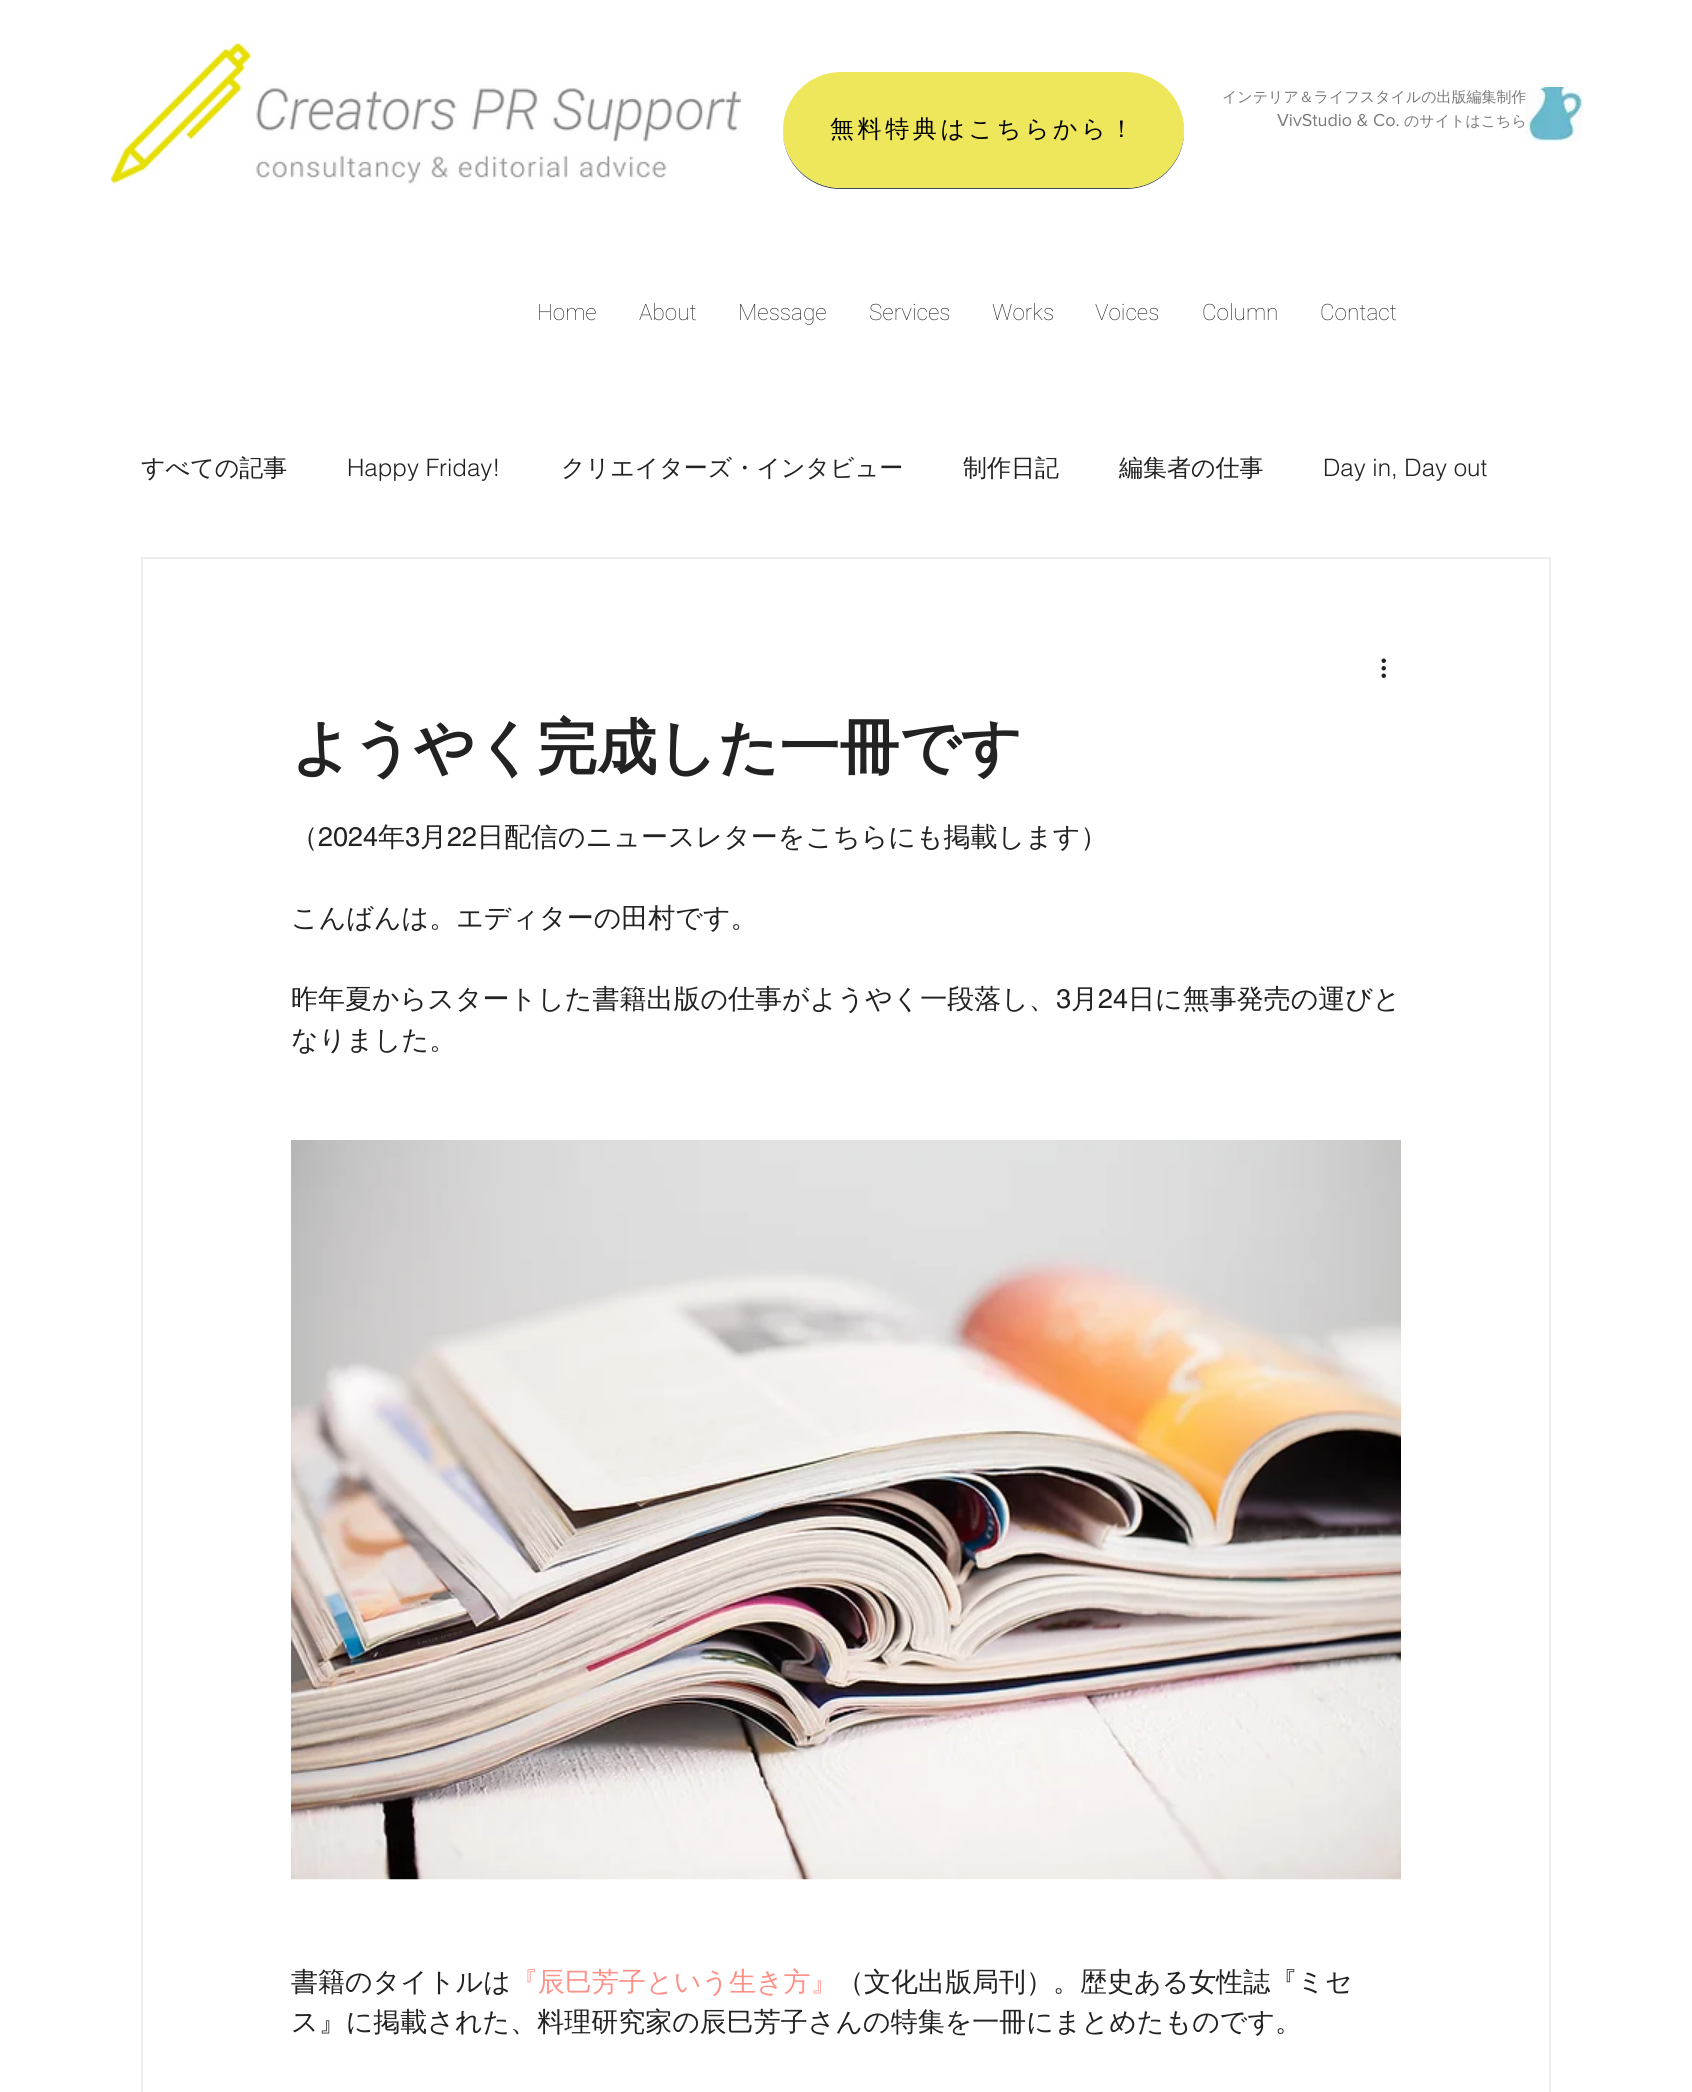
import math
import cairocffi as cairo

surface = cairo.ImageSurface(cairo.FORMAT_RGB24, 1692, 2092)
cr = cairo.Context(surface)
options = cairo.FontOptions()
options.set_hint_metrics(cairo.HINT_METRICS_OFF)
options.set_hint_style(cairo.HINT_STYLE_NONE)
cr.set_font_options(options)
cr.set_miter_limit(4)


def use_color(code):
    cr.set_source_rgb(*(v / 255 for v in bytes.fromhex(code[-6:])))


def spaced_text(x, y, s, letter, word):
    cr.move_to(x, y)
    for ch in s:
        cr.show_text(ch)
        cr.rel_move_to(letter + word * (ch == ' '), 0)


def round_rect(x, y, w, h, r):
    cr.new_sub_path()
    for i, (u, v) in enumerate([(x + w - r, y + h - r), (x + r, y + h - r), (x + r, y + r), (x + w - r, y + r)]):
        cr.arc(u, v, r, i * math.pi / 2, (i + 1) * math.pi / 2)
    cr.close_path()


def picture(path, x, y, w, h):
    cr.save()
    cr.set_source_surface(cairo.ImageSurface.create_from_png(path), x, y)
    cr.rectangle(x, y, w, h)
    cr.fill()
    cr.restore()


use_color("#ffffff")
cr.paint()
picture("img1.png", 111, 43, 630, 143)
use_color("#3e464d")
cr.new_path()
cr.move_to(783, 131)
cr.line_to(783, 132)
cr.curve_to(783, 163, 809, 189, 840, 189)
cr.line_to(1126, 189)
cr.curve_to(1158, 189, 1184, 163, 1184, 132)
cr.curve_to(1184, 126, 1183, 120, 1182, 115)
cr.curve_to(1183, 120, 1184, 125, 1184, 130)
cr.curve_to(1184, 162, 1158, 188, 1126, 188)
cr.line_to(841, 188)
cr.curve_to(809, 188, 783, 162, 783, 131)
cr.close_path()
cr.fill()
use_color("#eee75c")
round_rect(783, 72, 401, 116, 58)
cr.fill()
cr.select_font_face("WenQuanYi Zen Hei Medium")
cr.set_font_size(24)
use_color("#000000")
spaced_text(830, 137, "無料特典はこちらから！", 3.6, 0)
cr.set_font_size(15)
use_color("#7a7a7a")
cr.move_to(1222, 102)
cr.show_text("インテリア＆ライフスタイルの出版編集制作")
cr.select_font_face("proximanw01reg")
cr.set_font_size(18)
cr.move_to(1277, 126)
cr.show_text("VivStudio & Co.")
cr.select_font_face("WenQuanYi Zen Hei Medium")
cr.set_font_size(15)
cr.move_to(1404, 126)
cr.show_text("のサイトはこちら")
picture("img2.png", 1525, 87, 58, 54)
cr.select_font_face("Roboto Thin")
cr.set_font_size(22.5)
use_color("#222222")
cr.move_to(537, 320)
cr.show_text("Home")
cr.move_to(639, 320)
cr.show_text("About")
cr.move_to(738, 320)
cr.show_text("Message")
cr.move_to(869, 320)
cr.show_text("Services")
cr.move_to(992, 320)
cr.show_text("Works")
cr.move_to(1095, 320)
cr.show_text("Voices")
cr.move_to(1202, 320)
cr.show_text("Column")
cr.move_to(1320, 320)
cr.show_text("Contact")
cr.select_font_face("WenQuanYi Zen Hei Medium")
cr.set_font_size(24)
cr.move_to(141, 476)
cr.show_text("すべての記事")
cr.select_font_face("helvetica Light")
cr.move_to(347, 476)
cr.show_text("Happy Friday!")
cr.select_font_face("WenQuanYi Zen Hei Medium")
cr.move_to(561, 476)
cr.show_text("クリエイターズ・インタビュー")
cr.move_to(963, 476)
cr.show_text("制作日記")
cr.move_to(1119, 476)
cr.show_text("編集者の仕事")
cr.select_font_face("helvetica Light")
cr.move_to(1323, 476)
cr.show_text("Day in, Day out")
cr.rectangle(142, 558, 1408, 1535)
use_color("#eeecec")
cr.stroke()
picture("img3.png", 1381, 658, 5, 20)
cr.select_font_face("WenQuanYi Zen Hei", cairo.FONT_SLANT_NORMAL, cairo.FONT_WEIGHT_BOLD)
cr.set_font_size(60)
use_color("#222222")
cr.move_to(291, 768)
cr.show_text("ようやく完成した一冊です")
cr.select_font_face("WenQuanYi Zen Hei Medium")
cr.set_font_size(27)
cr.move_to(291, 846)
cr.show_text("（")
cr.select_font_face("helvetica")
cr.move_to(318, 846)
cr.show_text("2024")
cr.select_font_face("WenQuanYi Zen Hei Medium")
cr.move_to(378, 846)
cr.show_text("年")
cr.select_font_face("helvetica")
cr.move_to(405, 846)
cr.show_text("3")
cr.select_font_face("WenQuanYi Zen Hei Medium")
cr.move_to(420, 846)
cr.show_text("月")
cr.select_font_face("helvetica")
cr.move_to(447, 846)
cr.show_text("22")
cr.select_font_face("WenQuanYi Zen Hei Medium")
cr.move_to(477, 846)
cr.show_text("日配信のニュースレターをこちらにも掲載します）")
cr.move_to(291, 927)
cr.show_text("こんばんは。エディターの田村です。")
cr.move_to(291, 1008)
cr.show_text("昨年夏からスタートした書籍出版の仕事がようやく一段落し、")
cr.select_font_face("helvetica")
cr.move_to(1056, 1008)
cr.show_text("3")
cr.select_font_face("WenQuanYi Zen Hei Medium")
cr.move_to(1071, 1008)
cr.show_text("月")
cr.select_font_face("helvetica")
cr.move_to(1098, 1008)
cr.show_text("24")
cr.select_font_face("WenQuanYi Zen Hei Medium")
cr.move_to(1128, 1008)
cr.show_text("日に無事発売の運びと")
cr.move_to(291, 1049)
cr.show_text("なりました。")
picture("img4.png", 291, 1140, 1110, 740)
cr.move_to(291, 1991)
cr.show_text("書籍のタイトルは")
use_color("#ff9087")
cr.move_to(511, 1991)
cr.show_text("『辰巳芳子という生き方』")
use_color("#222222")
cr.move_to(837, 1991)
cr.show_text("（文化出版局刊）。歴史ある女性誌『ミセ")
cr.move_to(291, 2031)
cr.show_text("ス』に掲載された、料理研究家の辰巳芳子さんの特集を一冊にまとめたものです。")
surface.write_to_png("result.png")
